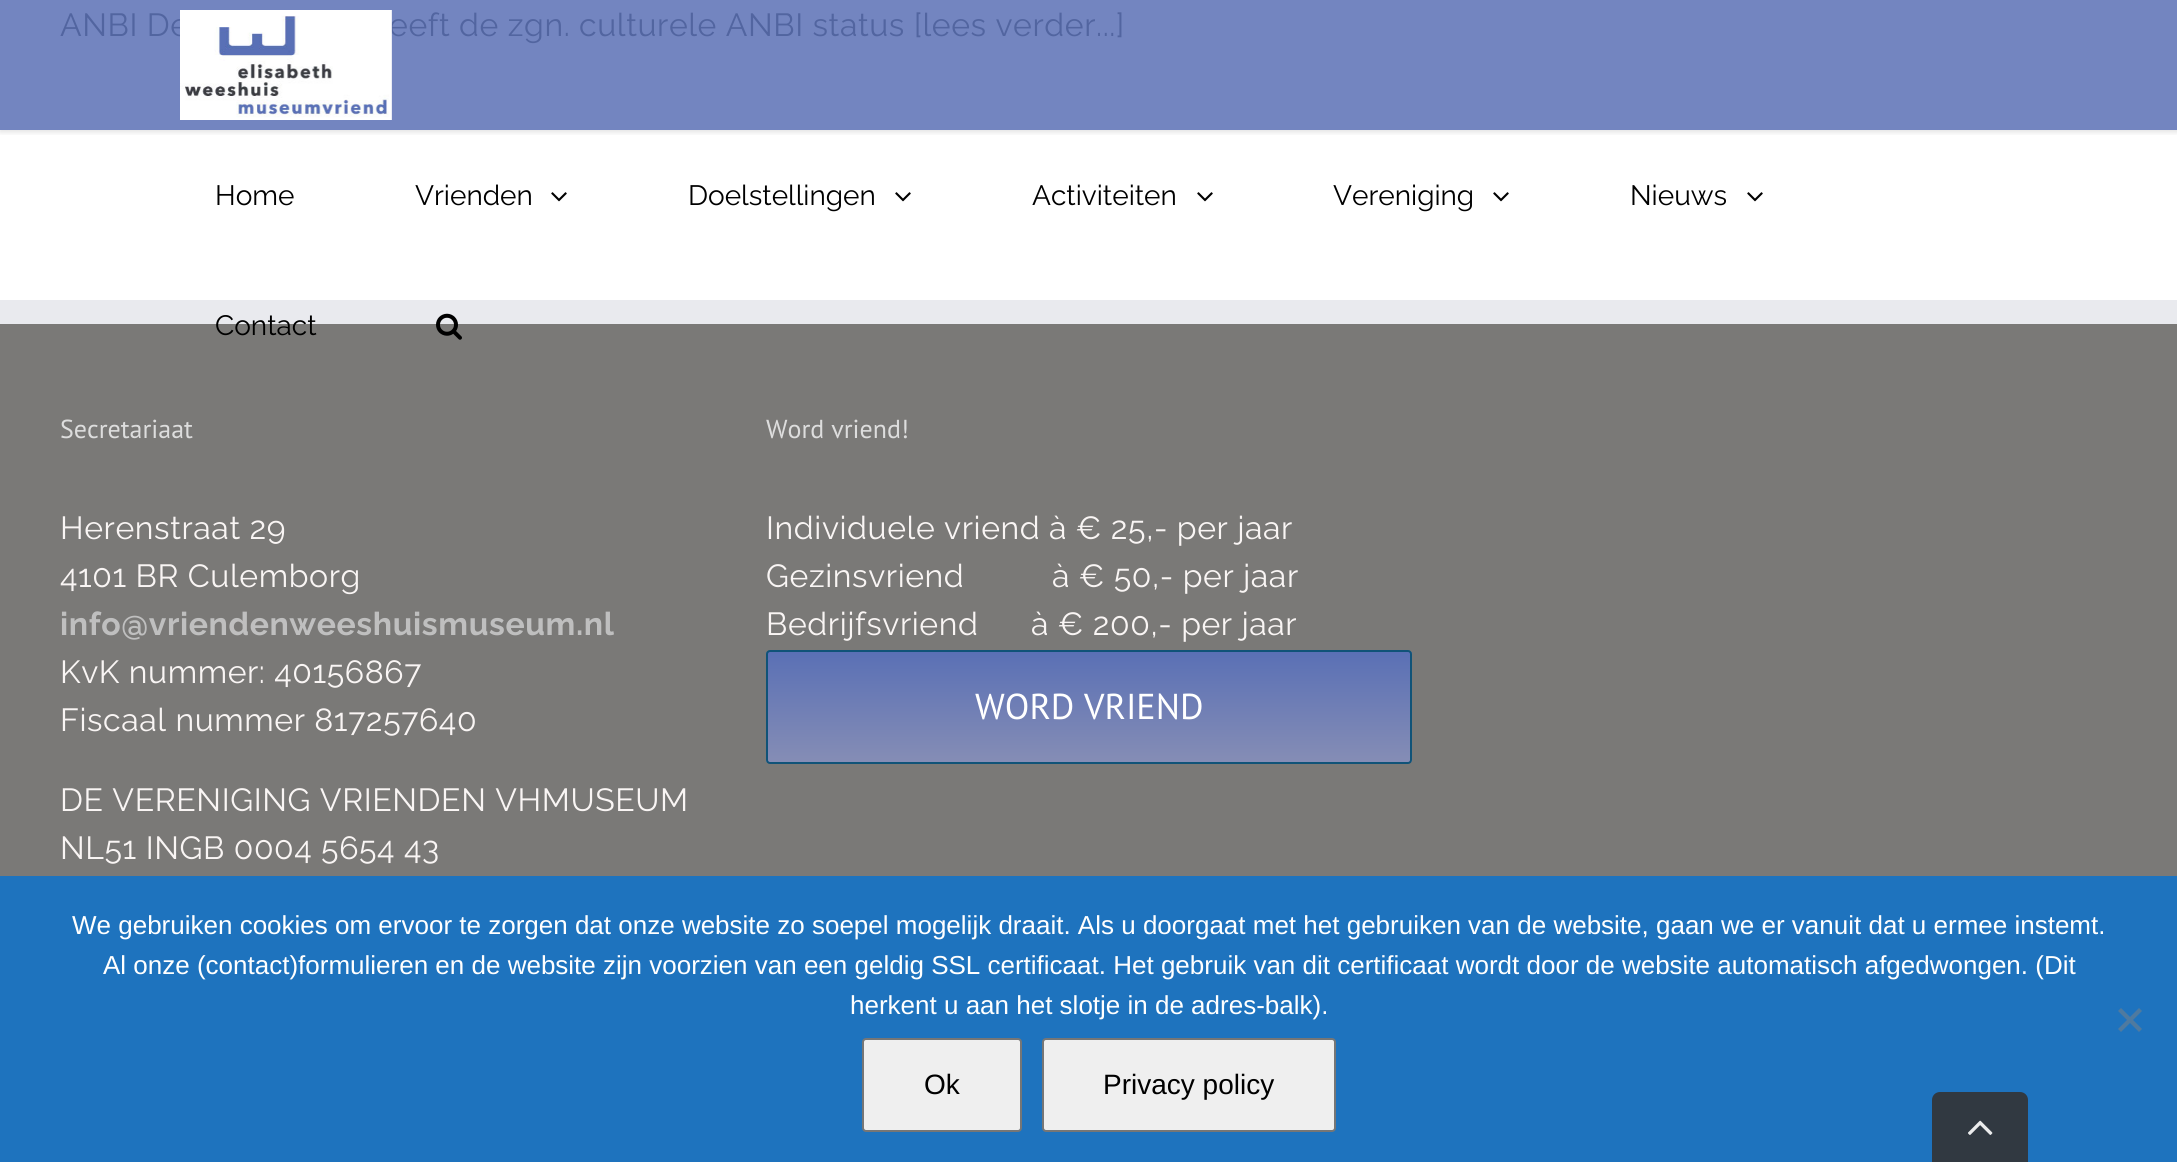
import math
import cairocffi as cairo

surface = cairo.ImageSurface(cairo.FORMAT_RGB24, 2177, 1162)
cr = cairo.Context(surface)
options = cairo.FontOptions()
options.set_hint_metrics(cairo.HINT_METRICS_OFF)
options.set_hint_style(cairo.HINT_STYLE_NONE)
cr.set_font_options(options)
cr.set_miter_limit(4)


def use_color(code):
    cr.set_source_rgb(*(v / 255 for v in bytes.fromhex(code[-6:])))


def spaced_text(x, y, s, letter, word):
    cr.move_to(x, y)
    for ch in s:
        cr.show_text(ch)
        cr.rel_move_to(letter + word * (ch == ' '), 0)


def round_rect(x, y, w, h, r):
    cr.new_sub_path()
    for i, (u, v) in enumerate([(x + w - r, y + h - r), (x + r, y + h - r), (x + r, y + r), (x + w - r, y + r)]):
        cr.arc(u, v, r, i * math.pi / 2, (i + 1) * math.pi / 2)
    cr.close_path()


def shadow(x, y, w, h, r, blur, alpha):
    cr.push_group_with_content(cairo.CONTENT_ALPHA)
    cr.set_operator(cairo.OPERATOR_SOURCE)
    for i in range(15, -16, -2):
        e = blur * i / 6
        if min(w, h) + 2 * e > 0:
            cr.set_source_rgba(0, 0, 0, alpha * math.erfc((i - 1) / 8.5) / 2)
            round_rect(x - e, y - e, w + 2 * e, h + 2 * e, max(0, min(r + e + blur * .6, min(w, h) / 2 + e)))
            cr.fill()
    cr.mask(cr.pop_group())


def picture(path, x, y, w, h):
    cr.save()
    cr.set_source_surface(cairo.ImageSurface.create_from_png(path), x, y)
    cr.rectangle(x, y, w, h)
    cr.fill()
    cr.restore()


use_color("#ffffff")
cr.paint()
use_color("#7385c0")
cr.rectangle(0, 0, 2177, 130)
cr.fill()
cr.select_font_face("Raleway")
cr.set_font_size(32)
use_color("#5265a0")
spaced_text(60, 36, "ANBI De", 0.6, 0)
spaced_text(389, 36, "eeft de zgn. culturele ANBI status [lees verder...]", 0.6, 0)
cr.save()
cr.rectangle(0, 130, 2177, 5)
cr.clip()
use_color("#000000")
shadow(0, 2, 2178, 130, 0, 3, 0.12)
cr.restore()
picture("img1.png", 180, 10, 212, 110)
cr.set_font_size(28)
use_color("#000000")
cr.move_to(215, 205)
cr.show_text("Home")
cr.move_to(415, 205)
cr.show_text("Vrienden")
picture("img2.png", 551, 192, 16, 10)
cr.move_to(688, 205)
cr.show_text("Doelstellingen")
picture("img2.png", 895, 192, 16, 10)
cr.move_to(1032, 205)
cr.show_text("Activiteiten")
picture("img2.png", 1197, 192, 16, 10)
cr.move_to(1333, 205)
cr.show_text("Vereniging")
picture("img2.png", 1493, 192, 16, 10)
cr.move_to(1630, 205)
cr.show_text("Nieuws")
picture("img2.png", 1747, 192, 16, 10)
use_color("#7a7977")
cr.rectangle(0, 324, 2177, 552)
cr.fill()
use_color("#e9eaee")
cr.rectangle(0, 300, 2177, 24)
cr.fill()
use_color("#000000")
cr.move_to(215, 335)
cr.show_text("Contact")
picture("img3.png", 436, 313, 26, 27)
cr.select_font_face("PT Sans")
cr.set_font_size(26)
use_color("#dddddd")
cr.move_to(60, 438)
cr.show_text("Secretariaat")
cr.select_font_face("Raleway")
cr.set_font_size(32)
use_color("#f9f5f4")
spaced_text(60, 539, "Herenstraat 29", 0.6, 0)
spaced_text(60, 587, "4101 BR Culemborg", 0.6, 0)
cr.select_font_face("Raleway", cairo.FONT_SLANT_NORMAL, cairo.FONT_WEIGHT_BOLD)
use_color("#bfbfbf")
spaced_text(60, 635, "info@vriendenweeshuismuseum.nl", 0.6, 0)
cr.select_font_face("Raleway")
use_color("#f9f5f4")
spaced_text(60, 683, "KvK nummer: 40156867", 0.6, 0)
spaced_text(60, 731, "Fiscaal nummer 817257640", 0.6, 0)
spaced_text(60, 811, "DE VERENIGING VRIENDEN VHMUSEUM", 0.6, 0)
spaced_text(60, 859, "NL51 INGB 0004 5654 43", 0.6, 0)
cr.select_font_face("PT Sans")
cr.set_font_size(26)
use_color("#dddddd")
cr.move_to(766, 438)
cr.show_text("Word vriend!")
cr.select_font_face("Raleway")
cr.set_font_size(32)
use_color("#f9f5f4")
spaced_text(766, 539, "Individuele vriend à € 25,- per jaar", 0.6, 0)
spaced_text(766, 587, "Gezinsvriend          à € 50,- per jaar", 0.6, 0)
spaced_text(766, 635, "Bedrijfsvriend      à € 200,- per jaar", 0.6, 0)
cr.save()
round_rect(766, 650, 646, 114, 4)
cr.clip()
gradient = cairo.LinearGradient(1089, 652, 1089, 762)
gradient.add_color_stop_rgba(0, 0.353, 0.439, 0.71, 1)
gradient.add_color_stop_rgba(1, 0.522, 0.553, 0.71, 1)
cr.set_source(gradient)
cr.rectangle(766, 652, 646, 110)
cr.fill()
cr.restore()
round_rect(767, 651, 644, 112, 3)
use_color("#105378")
cr.stroke()
cr.select_font_face("PT Sans")
cr.set_font_size(36)
use_color("#ffffff")
cr.move_to(975, 719)
cr.show_text("WORD VRIEND")
use_color("#1e73be")
cr.rectangle(0, 876, 2177, 286)
cr.fill()
cr.select_font_face("Liberation Sans")
cr.set_font_size(26)
use_color("#ffffff")
cr.move_to(72, 934)
cr.show_text("We gebruiken cookies om ervoor te zorgen dat onze website zo soepel mogelijk draait. Als u doorgaat met het gebruiken van de website, gaan we er vanuit dat u ermee instemt.")
cr.move_to(103, 974)
cr.show_text("Al onze (contact)formulieren en de website zijn voorzien van een geldig SSL certificaat. Het gebruik van dit certificaat wordt door de website automatisch afgedwongen. (Dit")
cr.move_to(850, 1014)
cr.show_text("herkent u aan het slotje in de adres-balk).")
use_color("#4f7a9f")
cr.new_path()
cr.move_to(2139, 1008)
cr.line_to(2142, 1011)
cr.line_to(2121, 1032)
cr.line_to(2118, 1029)
cr.close_path()
cr.fill()
cr.new_path()
cr.move_to(2118, 1011)
cr.line_to(2121, 1008)
cr.line_to(2142, 1029)
cr.line_to(2139, 1032)
cr.close_path()
cr.fill()
use_color("#efefef")
round_rect(863, 1039, 158, 92, 3)
cr.fill_preserve()
use_color("#767676")
cr.stroke()
cr.set_font_size(28)
use_color("#000000")
cr.move_to(924, 1094)
cr.show_text("Ok")
use_color("#efefef")
round_rect(1043, 1039, 292, 92, 3)
cr.fill_preserve()
use_color("#767676")
cr.stroke()
use_color("#000000")
cr.move_to(1103, 1094)
cr.show_text("Privacy policy")
use_color("#313941")
cr.new_path()
cr.move_to(1940, 1092)
cr.line_to(2020, 1092)
cr.curve_to(2024.5, 1092, 2028, 1095.5, 2028, 1100)
cr.line_to(2028, 1162)
cr.line_to(1932, 1162)
cr.line_to(1932, 1100)
cr.curve_to(1932, 1095.5, 1935.5, 1092, 1940, 1092)
cr.close_path()
cr.fill()
picture("img4.png", 1968, 1120, 25, 15)
surface.write_to_png("result.png")
